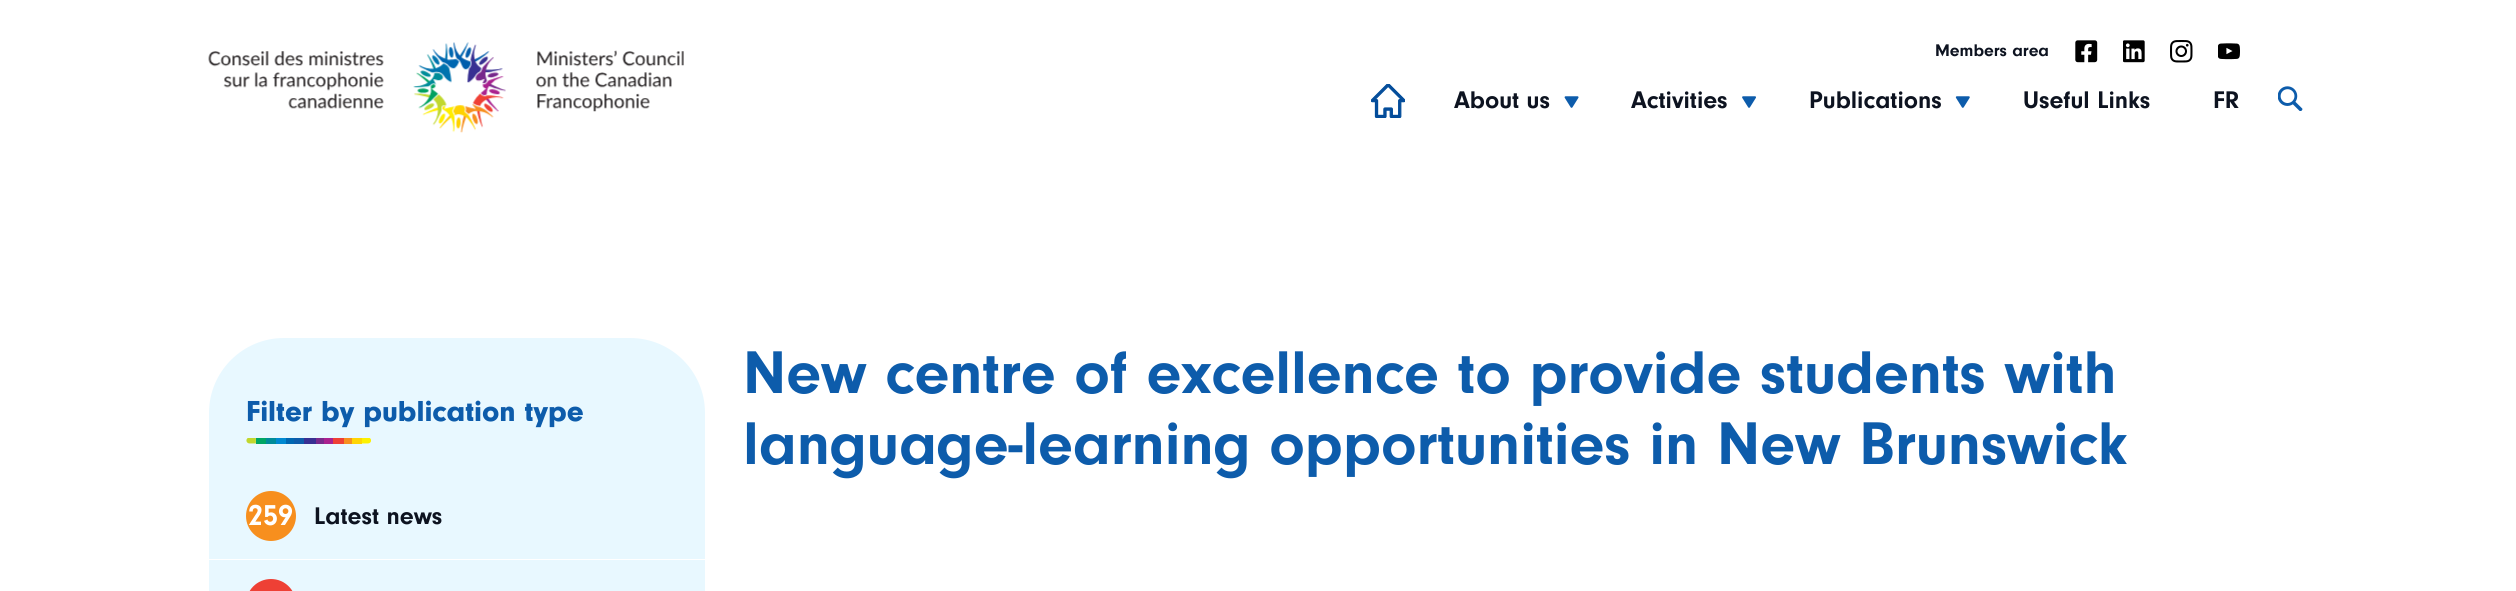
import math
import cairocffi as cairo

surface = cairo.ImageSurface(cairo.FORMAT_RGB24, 2516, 591)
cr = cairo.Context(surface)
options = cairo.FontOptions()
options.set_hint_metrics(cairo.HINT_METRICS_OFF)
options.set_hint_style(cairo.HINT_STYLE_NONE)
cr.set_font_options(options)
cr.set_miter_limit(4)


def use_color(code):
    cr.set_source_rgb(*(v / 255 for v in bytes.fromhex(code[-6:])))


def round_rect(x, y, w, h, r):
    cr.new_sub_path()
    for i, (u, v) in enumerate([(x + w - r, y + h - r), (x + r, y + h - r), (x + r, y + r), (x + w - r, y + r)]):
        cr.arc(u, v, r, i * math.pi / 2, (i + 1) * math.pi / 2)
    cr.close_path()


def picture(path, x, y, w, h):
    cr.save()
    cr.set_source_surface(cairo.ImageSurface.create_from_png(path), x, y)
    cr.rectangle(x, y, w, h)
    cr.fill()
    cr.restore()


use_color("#ffffff")
cr.paint()
picture("img1.png", 208, 42, 476, 91)
cr.select_font_face("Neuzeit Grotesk", cairo.FONT_SLANT_NORMAL, cairo.FONT_WEIGHT_BOLD)
cr.set_font_size(17.5)
use_color("#0d1320")
cr.move_to(1935, 56)
cr.show_text("Members area")
picture("img2.png", 2075, 40, 23, 23)
picture("img3.png", 2123, 40, 22, 23)
picture("img4.png", 2170, 40, 23, 23)
picture("img5.png", 2218, 43, 22, 17)
picture("img6.png", 1371, 84, 34, 34)
cr.set_font_size(25)
cr.move_to(1454, 108)
cr.show_text("About us")
picture("img7.png", 1564, 96, 15, 12)
cr.move_to(1631, 108)
cr.show_text("Activities")
picture("img8.png", 1742, 96, 14, 12)
cr.move_to(1809, 108)
cr.show_text("Publications")
picture("img9.png", 1955, 96, 15, 12)
cr.move_to(2023, 108)
cr.show_text("Useful Links")
cr.move_to(2213, 108)
cr.show_text("FR")
picture("img10.png", 2278, 86, 25, 25)
use_color("#e8f8ff")
round_rect(209, 338, 496, 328, 75)
cr.fill()
cr.select_font_face("Neuzeit Grotesk Black")
cr.set_font_size(30)
use_color("#0d5cab")
cr.move_to(246, 421)
cr.show_text("Filter by publication type")
picture("img11.png", 246, 438, 125, 6)
use_color("#f78f1e")
cr.arc(271, 516, 25, 0, 2 * math.pi)
cr.fill()
cr.select_font_face("Neuzeit Grotesk", cairo.FONT_SLANT_NORMAL, cairo.FONT_WEIGHT_BOLD)
use_color("#ffffff")
cr.move_to(248, 525)
cr.show_text("259")
cr.set_font_size(25)
use_color("#0d1320")
cr.move_to(314, 524)
cr.show_text("Latest news")
use_color("#ffffff")
cr.rectangle(209, 559, 496, 1)
cr.fill()
use_color("#ee4035")
round_rect(246, 579, 50, 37, 25)
cr.fill()
cr.set_font_size(62.5)
use_color("#0d5cab")
cr.move_to(743, 393)
cr.show_text("New centre of excellence to provide students with")
cr.move_to(743, 464)
cr.show_text("language-learning opportunities in New Brunswick")
surface.write_to_png("result.png")
